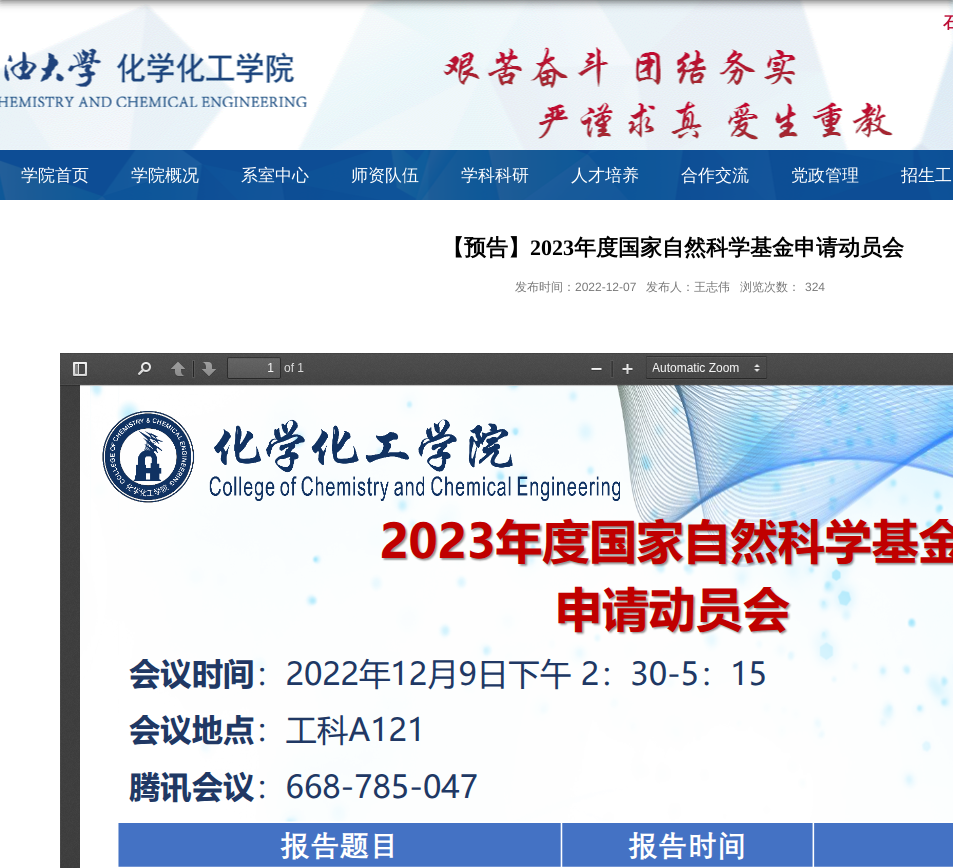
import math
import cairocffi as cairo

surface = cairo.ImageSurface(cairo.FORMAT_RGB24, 953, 868)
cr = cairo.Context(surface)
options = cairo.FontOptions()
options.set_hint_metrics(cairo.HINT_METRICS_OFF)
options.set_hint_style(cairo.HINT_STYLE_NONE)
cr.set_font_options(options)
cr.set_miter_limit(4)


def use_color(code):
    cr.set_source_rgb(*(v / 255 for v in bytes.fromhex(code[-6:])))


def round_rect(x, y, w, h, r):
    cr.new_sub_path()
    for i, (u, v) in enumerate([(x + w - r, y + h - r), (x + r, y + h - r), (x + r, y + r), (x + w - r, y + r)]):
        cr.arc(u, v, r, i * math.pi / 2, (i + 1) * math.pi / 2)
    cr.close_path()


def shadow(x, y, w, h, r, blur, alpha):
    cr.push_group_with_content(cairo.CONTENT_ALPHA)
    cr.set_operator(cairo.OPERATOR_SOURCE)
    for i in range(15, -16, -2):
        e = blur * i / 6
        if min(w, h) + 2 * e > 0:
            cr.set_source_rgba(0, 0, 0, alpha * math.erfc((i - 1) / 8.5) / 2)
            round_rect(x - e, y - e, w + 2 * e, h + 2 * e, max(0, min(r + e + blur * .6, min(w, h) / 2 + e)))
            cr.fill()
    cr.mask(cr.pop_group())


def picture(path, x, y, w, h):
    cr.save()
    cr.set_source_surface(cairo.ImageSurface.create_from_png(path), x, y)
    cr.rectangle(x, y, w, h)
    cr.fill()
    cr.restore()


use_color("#ffffff")
cr.paint()
picture("img1.png", 0, 0, 953, 150)
use_color("#000000")
shadow(0, -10, 953, 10, 0, 5, 0.8)
cr.select_font_face("WenQuanYi Zen Hei", cairo.FONT_SLANT_NORMAL, cairo.FONT_WEIGHT_BOLD)
cr.set_font_size(16)
use_color("#bb0b33")
cr.move_to(943, 28)
cr.show_text("石")
picture("img2.png", 0, 150, 953, 50)
cr.select_font_face("WenQuanYi Zen Hei Medium")
cr.set_font_size(17)
use_color("#ffffff")
cr.move_to(21, 181)
cr.show_text("学院首页")
cr.move_to(131, 181)
cr.show_text("学院概况")
cr.move_to(241, 181)
cr.show_text("系室中心")
cr.move_to(351, 181)
cr.show_text("师资队伍")
cr.move_to(461, 181)
cr.show_text("学科科研")
cr.move_to(571, 181)
cr.show_text("人才培养")
cr.move_to(681, 181)
cr.show_text("合作交流")
cr.move_to(791, 181)
cr.show_text("党政管理")
cr.move_to(901, 181)
cr.show_text("招生工")
cr.select_font_face("WenQuanYi Zen Hei", cairo.FONT_SLANT_NORMAL, cairo.FONT_WEIGHT_BOLD)
cr.set_font_size(22)
use_color("#000000")
cr.move_to(442, 255)
cr.show_text("【预告】")
cr.select_font_face("Liberation Serif", cairo.FONT_SLANT_NORMAL, cairo.FONT_WEIGHT_BOLD)
cr.move_to(530, 255)
cr.show_text("2023")
cr.select_font_face("WenQuanYi Zen Hei", cairo.FONT_SLANT_NORMAL, cairo.FONT_WEIGHT_BOLD)
cr.move_to(574, 255)
cr.show_text("年度国家自然科学基金申请动员会")
cr.select_font_face("WenQuanYi Zen Hei Medium")
cr.set_font_size(12)
use_color("#787878")
cr.move_to(515, 291)
cr.show_text("发布时间：")
cr.select_font_face("Liberation Sans")
cr.move_to(575, 291)
cr.show_text("2022-12-07")
cr.select_font_face("WenQuanYi Zen Hei Medium")
cr.move_to(646, 291)
cr.show_text("发布人：王志伟")
cr.move_to(740, 291)
cr.show_text("浏览次数：")
cr.select_font_face("Liberation Sans")
cr.move_to(805, 291)
cr.show_text("324")
picture("img3.png", 60, 353, 893, 515)
surface.write_to_png("result.png")
